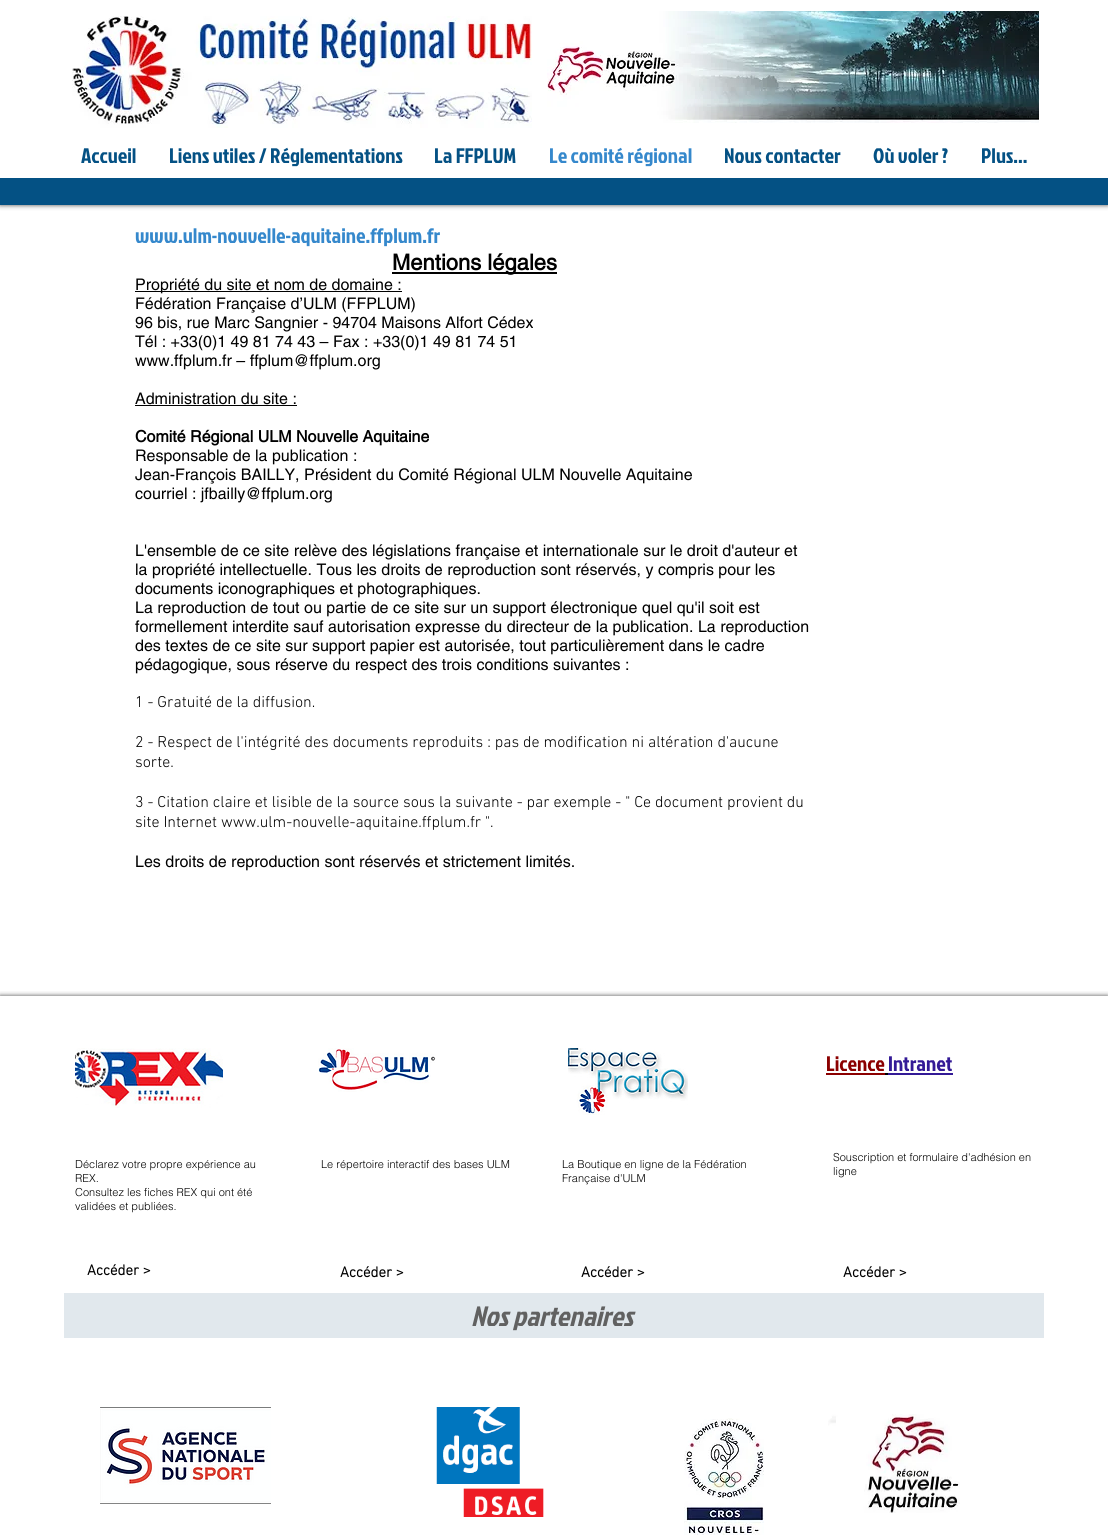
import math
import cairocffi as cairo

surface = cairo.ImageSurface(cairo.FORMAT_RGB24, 1108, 1535)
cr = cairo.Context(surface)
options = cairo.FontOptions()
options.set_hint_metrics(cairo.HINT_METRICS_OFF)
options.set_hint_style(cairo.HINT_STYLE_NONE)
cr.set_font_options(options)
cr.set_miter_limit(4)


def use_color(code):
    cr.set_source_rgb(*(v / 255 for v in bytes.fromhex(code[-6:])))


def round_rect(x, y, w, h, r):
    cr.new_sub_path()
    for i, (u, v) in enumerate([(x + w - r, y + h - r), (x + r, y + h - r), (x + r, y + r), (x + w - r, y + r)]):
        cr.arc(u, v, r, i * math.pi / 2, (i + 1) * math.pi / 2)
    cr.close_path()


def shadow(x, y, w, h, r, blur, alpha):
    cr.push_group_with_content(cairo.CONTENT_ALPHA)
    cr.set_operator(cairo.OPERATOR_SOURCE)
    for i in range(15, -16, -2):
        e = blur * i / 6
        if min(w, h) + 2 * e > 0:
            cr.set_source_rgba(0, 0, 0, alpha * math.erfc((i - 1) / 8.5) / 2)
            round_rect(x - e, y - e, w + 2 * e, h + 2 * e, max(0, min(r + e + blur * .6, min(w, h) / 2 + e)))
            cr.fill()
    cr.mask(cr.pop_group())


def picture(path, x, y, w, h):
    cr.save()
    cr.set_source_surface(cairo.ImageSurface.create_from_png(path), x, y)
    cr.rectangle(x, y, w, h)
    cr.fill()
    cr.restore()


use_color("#ffffff")
cr.paint()
use_color("#000000")
shadow(0, 0, 1108, 205, 0, 2.5, 0.7)
use_color("#ffffff")
cr.rectangle(0, 0, 1108, 178)
cr.fill()
picture("img1.png", 72, 16, 460, 112)
picture("img2.png", 547, 11, 492, 112)
cr.select_font_face("Jockey One")
cr.set_font_size(21)
use_color("#045184")
cr.move_to(81, 163)
cr.show_text("Accueil")
cr.move_to(169, 163)
cr.show_text("Liens utiles / Réglementations")
cr.move_to(434, 163)
cr.show_text("La FFPLUM")
use_color("#3588cc")
cr.move_to(549, 163)
cr.show_text("Le comité régional")
use_color("#045184")
cr.move_to(724, 163)
cr.show_text("Nous contacter")
cr.move_to(873, 163)
cr.show_text("Où voler ?")
cr.move_to(981, 163)
cr.show_text("Plus...")
cr.rectangle(0, 178, 1108, 27)
cr.fill()
use_color("#3588cc")
cr.move_to(135, 243)
cr.show_text("www.ulm-nouvelle-aquitaine.ffplum.fr")
use_color("#000000")
cr.rectangle(392, 272, 165, 2)
cr.fill()
cr.select_font_face("helvetica", cairo.FONT_SLANT_NORMAL, cairo.FONT_WEIGHT_BOLD)
cr.set_font_size(22)
cr.move_to(392, 270)
cr.show_text("Mentions légales")
cr.rectangle(135, 291, 267, 1)
cr.fill()
cr.select_font_face("helvetica")
cr.set_font_size(16)
cr.move_to(135, 290)
cr.show_text("Propriété du site et nom de domaine :")
cr.move_to(135, 309)
cr.show_text("Fédération Française d’ULM (FFPLUM)")
cr.move_to(135, 328)
cr.show_text("96 bis, rue Marc Sangnier - 94704 Maisons Alfort Cédex")
cr.move_to(135, 347)
cr.show_text("Tél : +33(0)1 49 81 74 43 – Fax : +33(0)1 49 81 74 51")
cr.move_to(135, 366)
cr.show_text("www.ffplum.fr – ffplum@ffplum.org")
cr.move_to(135, 404)
cr.show_text("Administration du site :")
cr.rectangle(135, 405, 162, 1)
cr.fill()
cr.select_font_face("helvetica", cairo.FONT_SLANT_NORMAL, cairo.FONT_WEIGHT_BOLD)
cr.move_to(135, 442)
cr.show_text("Comité Régional ULM Nouvelle Aquitaine")
cr.select_font_face("helvetica")
cr.move_to(135, 461)
cr.show_text("Responsable de la publication :")
cr.move_to(135, 480)
cr.show_text("Jean-François BAILLY, Président du Comité Régional ULM Nouvelle Aquitaine")
cr.move_to(135, 499)
cr.show_text("courriel : jfbailly@ffplum.org")
cr.move_to(135, 556)
cr.show_text("L'ensemble de ce site relève des législations française et internationale sur le droit d'auteur et")
cr.move_to(135, 575)
cr.show_text("la propriété intellectuelle. Tous les droits de reproduction sont réservés, y compris pour les")
cr.move_to(135, 594)
cr.show_text("documents iconographiques et photographiques.")
cr.move_to(135, 613)
cr.show_text("La reproduction de tout ou partie de ce site sur un support électronique quel qu'il soit est")
cr.move_to(135, 632)
cr.show_text("formellement interdite sauf autorisation expresse du directeur de la publication. La reproduction")
cr.move_to(135, 651)
cr.show_text("des textes de ce site sur support papier est autorisée, tout particulièrement dans le cadre")
cr.move_to(135, 670)
cr.show_text("pédagogique, sous réserve du respect des trois conditions suivantes :")
cr.select_font_face("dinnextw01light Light")
cr.move_to(135, 707)
cr.show_text("1 - Gratuité de la diffusion.")
cr.move_to(135, 747)
cr.show_text("2 - Respect de l'intégrité des documents reproduits : pas de modification ni altération d'aucune")
cr.move_to(135, 767)
cr.show_text("sorte.")
cr.move_to(135, 807)
cr.show_text("3 - Citation claire et lisible de la source sous la suivante - par exemple - \" Ce document provient du")
cr.move_to(135, 827)
cr.show_text("site Internet www.ulm-nouvelle-aquitaine.ffplum.fr \".")
cr.select_font_face("helvetica")
cr.move_to(135, 867)
cr.show_text("Les droits de reproduction sont réservés et strictement limités.")
cr.save()
cr.rectangle(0, 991, 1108, 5)
cr.clip()
use_color("#000000")
shadow(0, 996, 1108, 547, 0, 2.5, 0.7)
cr.restore()
picture("img3.png", 75, 1048, 148, 60)
picture("img4.png", 318, 1048, 118, 44)
picture("img5.png", 568, 1048, 120, 67)
cr.select_font_face("Jockey One")
cr.set_font_size(21)
use_color("#8b0000")
cr.move_to(826, 1071)
cr.show_text("Licence")
cr.rectangle(826, 1073, 59, 2)
cr.fill()
use_color("#000000")
cr.rectangle(885, 1073, 3, 2)
cr.fill()
use_color("#331a96")
cr.move_to(888, 1071)
cr.show_text("Intranet")
cr.rectangle(888, 1073, 65, 2)
cr.fill()
cr.select_font_face("helvetica Light")
cr.set_font_size(11)
use_color("#000000")
cr.move_to(75, 1168)
cr.show_text("Déclarez votre propre expérience au")
cr.move_to(75, 1182)
cr.show_text("REX.")
cr.move_to(75, 1196)
cr.show_text("Consultez les fiches REX qui ont été")
cr.move_to(75, 1210)
cr.show_text("validées et publiées.")
cr.move_to(321, 1168)
cr.show_text("Le répertoire interactif des bases ULM")
cr.move_to(562, 1168)
cr.show_text("La Boutique en ligne de la Fédération")
cr.move_to(562, 1182)
cr.show_text("Française d'ULM")
cr.move_to(833, 1161)
cr.show_text("Souscription et formulaire d'adhésion en")
cr.move_to(833, 1175)
cr.show_text("ligne")
cr.select_font_face("dinnextw01light", cairo.FONT_SLANT_NORMAL, cairo.FONT_WEIGHT_BOLD)
cr.set_font_size(15)
cr.move_to(87, 1275)
cr.show_text("Accéder >")
cr.move_to(340, 1277)
cr.show_text("Accéder >")
cr.move_to(581, 1277)
cr.show_text("Accéder >")
cr.move_to(843, 1277)
cr.show_text("Accéder >")
use_color("#e1e8ed")
cr.rectangle(64, 1293, 980, 45)
cr.fill()
cr.select_font_face("Jockey One", cairo.FONT_SLANT_ITALIC)
cr.set_font_size(28)
use_color("#616161")
cr.move_to(471, 1326)
cr.show_text("Nos partenaires")
picture("img6.png", 100, 1407, 171, 97)
picture("img7.png", 436, 1407, 108, 110)
picture("img8.png", 684, 1418, 80, 117)
picture("img9.png", 828, 1414, 132, 99)
surface.write_to_png("result.png")
